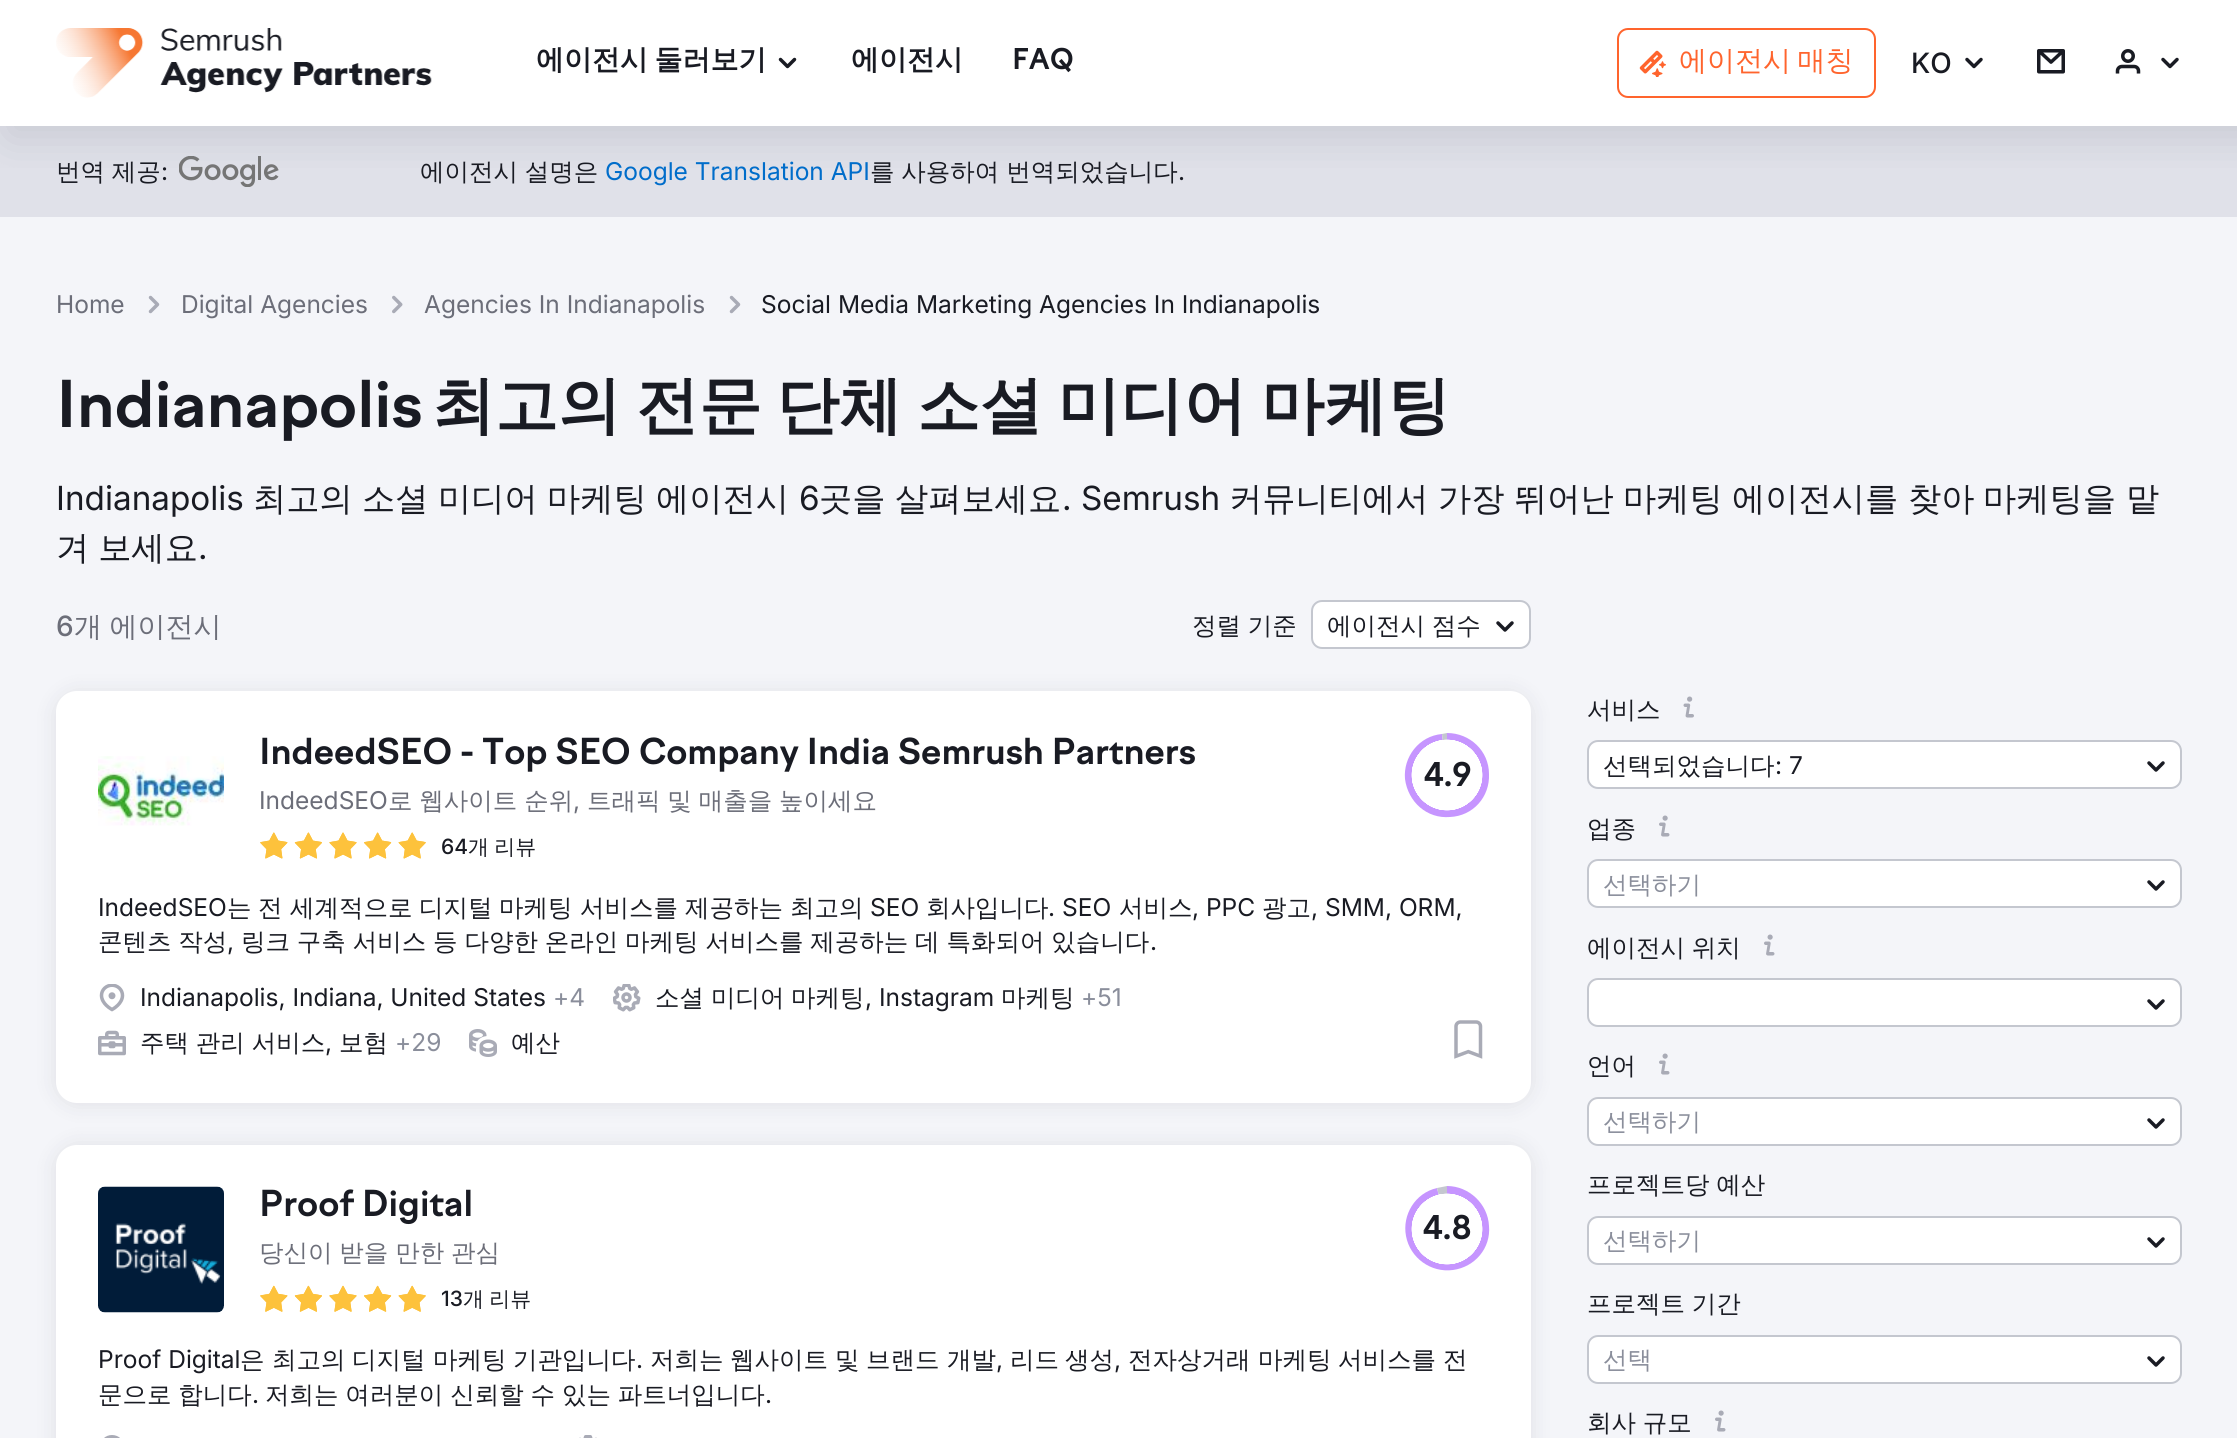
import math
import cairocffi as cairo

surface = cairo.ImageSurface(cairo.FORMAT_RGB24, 2237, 1438)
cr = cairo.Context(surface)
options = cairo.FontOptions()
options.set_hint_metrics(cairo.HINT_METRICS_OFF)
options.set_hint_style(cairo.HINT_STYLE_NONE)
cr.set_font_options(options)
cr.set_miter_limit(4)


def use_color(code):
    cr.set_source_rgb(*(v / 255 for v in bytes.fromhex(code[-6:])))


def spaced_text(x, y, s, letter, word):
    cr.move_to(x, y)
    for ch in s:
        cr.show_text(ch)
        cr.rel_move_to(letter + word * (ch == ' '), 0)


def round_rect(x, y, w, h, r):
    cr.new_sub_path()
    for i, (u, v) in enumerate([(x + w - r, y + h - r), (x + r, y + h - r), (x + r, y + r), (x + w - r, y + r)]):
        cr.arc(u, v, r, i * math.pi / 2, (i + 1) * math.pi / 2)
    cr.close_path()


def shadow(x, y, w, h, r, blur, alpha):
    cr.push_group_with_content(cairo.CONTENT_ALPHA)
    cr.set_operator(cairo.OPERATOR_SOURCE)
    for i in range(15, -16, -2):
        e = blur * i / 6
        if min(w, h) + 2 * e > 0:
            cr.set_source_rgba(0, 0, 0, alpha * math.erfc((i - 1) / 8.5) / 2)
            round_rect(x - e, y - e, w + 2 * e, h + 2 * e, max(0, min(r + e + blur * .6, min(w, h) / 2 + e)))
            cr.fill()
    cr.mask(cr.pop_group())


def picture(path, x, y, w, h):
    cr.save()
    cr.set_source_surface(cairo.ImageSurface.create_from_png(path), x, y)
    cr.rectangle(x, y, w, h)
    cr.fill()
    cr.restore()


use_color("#ffffff")
cr.paint()
use_color("#e0e1e9")
cr.rectangle(0, 126, 2237, 91)
cr.fill()
picture("img7.png", 179, 156, 100, 31)
cr.save()
cr.rectangle(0, 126, 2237, 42)
cr.clip()
use_color("#898d9a")
shadow(9, 9, 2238, 126, 0, 22, 0.3)
cr.restore()
picture("img1.png", 56, 28, 376, 70)
cr.select_font_face("WenQuanYi Zen Hei", cairo.FONT_SLANT_NORMAL, cairo.FONT_WEIGHT_BOLD)
cr.set_font_size(28)
use_color("#191b23")
spaced_text(536, 69, "에이전시 둘러보기", 0, -2)
picture("img2.png", 778, 57, 19, 12)
cr.move_to(851, 69)
cr.show_text("에이전시")
cr.select_font_face("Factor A", cairo.FONT_SLANT_NORMAL, cairo.FONT_WEIGHT_BOLD)
cr.move_to(1012, 69)
cr.show_text("FAQ")
round_rect(1618, 29, 257, 68, 10)
use_color("#ff642d")
cr.stroke()
picture("img3.png", 1639, 50, 27, 27)
cr.select_font_face("WenQuanYi Zen Hei Medium")
spaced_text(1679, 70, "에이전시 매칭", 0, -2)
cr.select_font_face("Inter Medium")
use_color("#191b23")
cr.move_to(1911, 73)
cr.show_text("KO")
picture("img4.png", 1965, 57, 18, 12)
picture("img5.png", 2037, 49, 28, 25)
picture("img6.png", 2115, 49, 26, 25)
picture("img4.png", 2161, 57, 18, 12)
cr.select_font_face("WenQuanYi Zen Hei Medium")
cr.set_font_size(24.5)
spaced_text(56, 180, "번역 제공", 0, -0.5)
cr.select_font_face("Inter")
cr.move_to(161, 180)
cr.show_text(":")
cr.select_font_face("WenQuanYi Zen Hei Medium")
spaced_text(420, 180, "에이전시 설명은", 0, -0.5)
cr.select_font_face("Inter")
use_color("#006dca")
cr.move_to(605, 180)
cr.show_text("Google Translation API")
cr.select_font_face("WenQuanYi Zen Hei Medium")
use_color("#191b23")
spaced_text(870, 180, "를 사용하여 번역되었습니다", 0, -0.5)
cr.select_font_face("Inter")
cr.move_to(1178, 180)
cr.show_text(".")
use_color("#f4f5f9")
cr.rectangle(0, 217, 2237, 1221)
cr.fill()
use_color("#6c6e79")
cr.move_to(56, 313)
cr.show_text("Home")
picture("img8.png", 148, 295, 12, 19)
cr.move_to(181, 313)
cr.show_text("Digital Agencies")
picture("img9.png", 392, 295, 11, 19)
cr.move_to(424, 313)
cr.show_text("Agencies In Indianapolis")
picture("img8.png", 729, 295, 12, 19)
use_color("#191b23")
cr.move_to(761, 313)
cr.show_text("Social Media Marketing Agencies In Indianapolis")
cr.select_font_face("Factor A", cairo.FONT_SLANT_NORMAL, cairo.FONT_WEIGHT_BOLD)
cr.set_font_size(63)
cr.move_to(56, 427)
cr.show_text("Indianapolis")
cr.select_font_face("WenQuanYi Zen Hei", cairo.FONT_SLANT_NORMAL, cairo.FONT_WEIGHT_BOLD)
spaced_text(432, 427, "최고의 전문 단체 소셜 미디어 마케팅", 0, -4.25)
cr.select_font_face("Inter")
cr.set_font_size(33.25)
cr.move_to(56, 510)
cr.show_text("Indianapolis")
cr.select_font_face("WenQuanYi Zen Hei Medium")
cr.move_to(253, 510)
cr.show_text("최고의")
cr.move_to(362, 510)
cr.show_text("소셜")
cr.move_to(438, 510)
cr.show_text("미디어")
cr.move_to(547, 510)
cr.show_text("마케팅")
cr.move_to(656, 510)
cr.show_text("에이전시")
cr.select_font_face("Inter")
cr.move_to(799, 510)
cr.show_text("6")
cr.select_font_face("WenQuanYi Zen Hei Medium")
cr.move_to(819, 510)
cr.show_text("곳을")
cr.move_to(895, 510)
cr.show_text("살펴보세요")
cr.select_font_face("Inter")
cr.move_to(1062, 510)
cr.show_text(". Semrush")
cr.select_font_face("WenQuanYi Zen Hei Medium")
cr.move_to(1229, 510)
cr.show_text("커뮤니티에서")
cr.move_to(1438, 510)
cr.show_text("가장")
cr.move_to(1514, 510)
cr.show_text("뛰어난")
cr.move_to(1623, 510)
cr.show_text("마케팅")
cr.move_to(1732, 510)
cr.show_text("에이전시를")
cr.move_to(1908, 510)
cr.show_text("찾아")
cr.move_to(1983, 510)
cr.show_text("마케팅을")
cr.move_to(2126, 510)
cr.show_text("맡")
spaced_text(56, 559, "겨 보세요", 0, -1)
cr.select_font_face("Inter")
cr.move_to(198, 559)
cr.show_text(".")
cr.select_font_face("Inter Medium")
cr.set_font_size(28)
use_color("#6c6e79")
cr.move_to(56, 636)
cr.show_text("6")
cr.select_font_face("WenQuanYi Zen Hei Medium")
spaced_text(74, 636, "개 에이전시", 0, -1)
cr.set_font_size(24.5)
use_color("#191b23")
spaced_text(1192, 634, "정렬 기준", 0, -0.5)
use_color("#ffffff")
round_rect(1312, 601, 218, 47, 10)
cr.fill_preserve()
use_color("#c4c7cf")
cr.stroke()
use_color("#191b23")
spaced_text(1327, 634, "에이전시 점수", 0, -0.5)
picture("img10.png", 1496, 621, 18, 11)
use_color("#191b23")
shadow(56, 693, 1475, 411, 21, 10.5, 0.1)
use_color("#ffffff")
round_rect(56, 691, 1475, 412, 21)
cr.fill()
picture("img11.png", 98, 756, 126, 70)
cr.select_font_face("Factor A", cairo.FONT_SLANT_NORMAL, cairo.FONT_WEIGHT_BOLD)
cr.set_font_size(35)
use_color("#191b23")
cr.move_to(259, 764)
cr.show_text("IndeedSEO - Top SEO Company India Semrush Partners")
cr.select_font_face("Inter")
cr.set_font_size(24.5)
use_color("#6c6e79")
cr.move_to(259, 809)
cr.show_text("IndeedSEO")
cr.select_font_face("WenQuanYi Zen Hei Medium")
spaced_text(388, 809, "로 웹사이트 순위", 0, -0.5)
cr.select_font_face("Inter")
cr.move_to(573, 809)
cr.show_text(",")
cr.select_font_face("WenQuanYi Zen Hei Medium")
spaced_text(587, 809, "트래픽 및 매출을 높이세요", 0, -0.5)
picture("img12.png", 260, 832, 166, 27)
cr.select_font_face("Inter Medium")
cr.set_font_size(21)
use_color("#191b23")
cr.move_to(441, 854)
cr.show_text("64")
cr.select_font_face("WenQuanYi Zen Hei Medium")
spaced_text(468, 854, "개 리뷰", 0, -1)
use_color("#c695ff")
cr.new_path()
cr.move_to(1447, 775)
cr.line_to(1447, 733)
cr.curve_to(1470, 733, 1489, 751, 1489, 774)
cr.curve_to(1490, 797, 1473, 816, 1450, 817)
cr.curve_to(1427, 819, 1408, 802, 1405, 779)
cr.curve_to(1403, 757, 1419, 736, 1442, 734)
cr.close_path()
cr.fill()
use_color("#c4c7cf")
cr.new_path()
cr.move_to(1447, 775)
cr.line_to(1442, 734)
cr.line_to(1447, 733)
cr.close_path()
cr.fill()
gradient = cairo.RadialGradient(1447, 775, 0, 1447, 775, 42)
gradient.add_color_stop_rgba(0.84, 1, 1, 1, 1)
gradient.add_color_stop_rgba(0.85, 1, 1, 1, 0)
gradient.add_color_stop_rgba(1, 0, 0, 0, 0)
cr.set_source(gradient)
cr.rectangle(1411, 739, 72, 72)
cr.fill()
cr.select_font_face("Factor A", cairo.FONT_SLANT_NORMAL, cairo.FONT_WEIGHT_BOLD)
cr.set_font_size(32)
use_color("#191b23")
cr.move_to(1424, 786)
cr.show_text("4.9")
cr.select_font_face("Inter")
cr.set_font_size(24.5)
cr.move_to(98, 916)
cr.show_text("IndeedSEO")
cr.select_font_face("WenQuanYi Zen Hei Medium")
cr.move_to(227, 916)
cr.show_text("는")
cr.move_to(258, 916)
cr.show_text("전")
cr.move_to(290, 916)
cr.show_text("세계적으로")
cr.move_to(419, 916)
cr.show_text("디지털")
cr.move_to(499, 916)
cr.show_text("마케팅")
cr.move_to(580, 916)
cr.show_text("서비스를")
cr.move_to(685, 916)
cr.show_text("제공하는")
cr.move_to(790, 916)
cr.show_text("최고의")
cr.select_font_face("Inter")
cr.move_to(870, 916)
cr.show_text("SEO")
cr.select_font_face("WenQuanYi Zen Hei Medium")
cr.move_to(926, 916)
cr.show_text("회사입니다")
cr.select_font_face("Inter")
cr.move_to(1048, 916)
cr.show_text(". SEO")
cr.select_font_face("WenQuanYi Zen Hei Medium")
cr.move_to(1119, 916)
cr.show_text("서비스")
cr.select_font_face("Inter")
cr.move_to(1192, 916)
cr.show_text(", PPC")
cr.select_font_face("WenQuanYi Zen Hei Medium")
cr.move_to(1262, 916)
cr.show_text("광고")
cr.select_font_face("Inter")
cr.move_to(1311, 916)
cr.show_text(", SMM, ORM,")
cr.select_font_face("WenQuanYi Zen Hei Medium")
spaced_text(98, 950, "콘텐츠 작성", 0, -0.5)
cr.select_font_face("Inter")
cr.move_to(227, 950)
cr.show_text(",")
cr.select_font_face("WenQuanYi Zen Hei Medium")
spaced_text(241, 950, "링크 구축 서비스 등 다양한 온라인 마케팅 서비스를 제공하는 데 특화되어 있습니다", 0, -0.5)
cr.select_font_face("Inter")
cr.move_to(1150, 950)
cr.show_text(".")
picture("img13.png", 99, 984, 26, 28)
cr.move_to(140, 1006)
cr.show_text("Indianapolis, Indiana, United States")
use_color("#8a8e9b")
cr.move_to(553, 1006)
cr.show_text("+4")
picture("img14.png", 613, 984, 28, 28)
cr.select_font_face("WenQuanYi Zen Hei Medium")
use_color("#191b23")
cr.move_to(655, 1006)
cr.show_text("소셜")
cr.move_to(711, 1006)
cr.show_text("미디어")
cr.move_to(791, 1006)
cr.show_text("마케팅")
cr.select_font_face("Inter")
cr.move_to(865, 1006)
cr.show_text(", Instagram")
cr.select_font_face("WenQuanYi Zen Hei Medium")
cr.move_to(1001, 1006)
cr.show_text("마케팅")
cr.select_font_face("Inter")
use_color("#8a8e9b")
cr.move_to(1081, 1006)
cr.show_text("+51")
picture("img15.png", 98, 1030, 28, 26)
cr.select_font_face("WenQuanYi Zen Hei Medium")
use_color("#191b23")
spaced_text(140, 1051, "주택 관리 서비스", 0, -0.5)
cr.select_font_face("Inter")
cr.move_to(325, 1051)
cr.show_text(",")
cr.select_font_face("WenQuanYi Zen Hei Medium")
cr.move_to(339, 1051)
cr.show_text("보험")
cr.select_font_face("Inter")
use_color("#8a8e9b")
cr.move_to(395, 1051)
cr.show_text("+29")
picture("img16.png", 469, 1029, 28, 28)
cr.select_font_face("WenQuanYi Zen Hei Medium")
use_color("#191b23")
cr.move_to(511, 1051)
cr.show_text("예산")
picture("img17.png", 1454, 1020, 29, 39)
use_color("#191b23")
shadow(56, 1146, 1475, 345, 21, 10.5, 0.1)
use_color("#ffffff")
round_rect(56, 1145, 1475, 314, 21)
cr.fill()
picture("img18.png", 98, 1186, 126, 127)
cr.select_font_face("Factor A", cairo.FONT_SLANT_NORMAL, cairo.FONT_WEIGHT_BOLD)
cr.set_font_size(35)
use_color("#191b23")
cr.move_to(259, 1216)
cr.show_text("Proof Digital")
cr.select_font_face("WenQuanYi Zen Hei Medium")
cr.set_font_size(24.5)
use_color("#6c6e79")
spaced_text(259, 1261, "당신이 받을 만한 관심", 0, -0.5)
picture("img19.png", 260, 1285, 166, 27)
cr.select_font_face("Inter Medium")
cr.set_font_size(21)
use_color("#191b23")
cr.move_to(441, 1306)
cr.show_text("13")
cr.select_font_face("WenQuanYi Zen Hei Medium")
spaced_text(463, 1306, "개 리뷰", 0, -1)
use_color("#c695ff")
cr.new_path()
cr.move_to(1447, 1228)
cr.line_to(1447, 1186)
cr.curve_to(1469, 1186, 1488, 1204, 1489, 1226)
cr.curve_to(1491, 1248, 1475, 1267, 1453, 1270)
cr.curve_to(1431, 1273, 1410, 1258, 1406, 1236)
cr.curve_to(1402, 1215, 1415, 1193, 1437, 1188)
cr.close_path()
cr.fill()
use_color("#c4c7cf")
cr.new_path()
cr.move_to(1447, 1228)
cr.line_to(1437, 1188)
cr.line_to(1447, 1186)
cr.close_path()
cr.fill()
gradient = cairo.RadialGradient(1447, 1229, 0, 1447, 1229, 42)
gradient.add_color_stop_rgba(0.84, 1, 1, 1, 1)
gradient.add_color_stop_rgba(0.85, 1, 1, 1, 0)
gradient.add_color_stop_rgba(1, 0, 0, 0, 0)
cr.set_source(gradient)
cr.rectangle(1411, 1193, 72, 72)
cr.fill()
cr.select_font_face("Factor A", cairo.FONT_SLANT_NORMAL, cairo.FONT_WEIGHT_BOLD)
cr.set_font_size(32)
use_color("#191b23")
cr.move_to(1423, 1239)
cr.show_text("4.8")
cr.select_font_face("Inter")
cr.set_font_size(24.5)
cr.move_to(98, 1368)
cr.show_text("Proof Digital")
cr.select_font_face("WenQuanYi Zen Hei Medium")
cr.move_to(240, 1368)
cr.show_text("은")
cr.move_to(272, 1368)
cr.show_text("최고의")
cr.move_to(352, 1368)
cr.show_text("디지털")
cr.move_to(433, 1368)
cr.show_text("마케팅")
cr.move_to(513, 1368)
cr.show_text("기관입니다")
cr.select_font_face("Inter")
cr.move_to(636, 1368)
cr.show_text(".")
cr.select_font_face("WenQuanYi Zen Hei Medium")
cr.move_to(650, 1368)
cr.show_text("저희는")
cr.move_to(730, 1368)
cr.show_text("웹사이트")
cr.move_to(835, 1368)
cr.show_text("및")
cr.move_to(866, 1368)
cr.show_text("브랜드")
cr.move_to(947, 1368)
cr.show_text("개발")
cr.select_font_face("Inter")
cr.move_to(996, 1368)
cr.show_text(",")
cr.select_font_face("WenQuanYi Zen Hei Medium")
cr.move_to(1010, 1368)
cr.show_text("리드")
cr.move_to(1065, 1368)
cr.show_text("생성")
cr.select_font_face("Inter")
cr.move_to(1114, 1368)
cr.show_text(",")
cr.select_font_face("WenQuanYi Zen Hei Medium")
cr.move_to(1128, 1368)
cr.show_text("전자상거래")
cr.move_to(1258, 1368)
cr.show_text("마케팅")
cr.move_to(1338, 1368)
cr.show_text("서비스를")
cr.move_to(1443, 1368)
cr.show_text("전")
spaced_text(98, 1403, "문으로 합니다", 0, -0.5)
cr.select_font_face("Inter")
cr.move_to(252, 1403)
cr.show_text(".")
cr.select_font_face("WenQuanYi Zen Hei Medium")
spaced_text(265, 1403, "저희는 여러분이 신뢰할 수 있는 파트너입니다", 0, -0.5)
cr.select_font_face("Inter")
cr.move_to(765, 1403)
cr.show_text(".")
picture("img20.png", 104, 1435, 16, 3)
picture("img21.png", 579, 1435, 18, 3)
cr.select_font_face("WenQuanYi Zen Hei Medium")
cr.move_to(1587, 718)
cr.show_text("서비스")
picture("img22.png", 1683, 696, 11, 22)
use_color("#ffffff")
round_rect(1588, 741, 593, 47, 10)
cr.fill_preserve()
use_color("#c4c7cf")
cr.stroke()
use_color("#191b23")
cr.move_to(1603, 774)
cr.show_text("선택되었습니다")
cr.select_font_face("Inter")
cr.move_to(1775, 774)
cr.show_text(": 7")
picture("img10.png", 2147, 761, 18, 11)
cr.select_font_face("WenQuanYi Zen Hei Medium")
cr.move_to(1587, 837)
cr.show_text("업종")
picture("img23.png", 1659, 815, 11, 22)
use_color("#ffffff")
round_rect(1588, 860, 593, 47, 10)
cr.fill_preserve()
use_color("#c4c7cf")
cr.stroke()
use_color("#8a8e9b")
cr.move_to(1603, 893)
cr.show_text("선택하기")
picture("img10.png", 2147, 880, 18, 11)
use_color("#191b23")
spaced_text(1587, 956, "에이전시 위치", 0, -0.5)
picture("img23.png", 1764, 934, 11, 22)
use_color("#ffffff")
round_rect(1588, 979, 593, 47, 10)
cr.fill_preserve()
use_color("#c4c7cf")
cr.stroke()
picture("img10.png", 2147, 999, 18, 11)
use_color("#191b23")
cr.move_to(1587, 1074)
cr.show_text("언어")
picture("img23.png", 1659, 1053, 11, 22)
use_color("#ffffff")
round_rect(1588, 1098, 593, 47, 10)
cr.fill_preserve()
use_color("#c4c7cf")
cr.stroke()
use_color("#8a8e9b")
cr.move_to(1603, 1130)
cr.show_text("선택하기")
picture("img10.png", 2147, 1118, 18, 11)
use_color("#191b23")
spaced_text(1587, 1193, "프로젝트당 예산", 0, -0.5)
use_color("#ffffff")
round_rect(1588, 1217, 593, 47, 10)
cr.fill_preserve()
use_color("#c4c7cf")
cr.stroke()
use_color("#8a8e9b")
cr.move_to(1603, 1249)
cr.show_text("선택하기")
picture("img10.png", 2147, 1237, 18, 11)
use_color("#191b23")
spaced_text(1587, 1312, "프로젝트 기간", 0, -0.5)
use_color("#ffffff")
round_rect(1588, 1336, 593, 47, 10)
cr.fill_preserve()
use_color("#c4c7cf")
cr.stroke()
use_color("#8a8e9b")
cr.move_to(1603, 1368)
cr.show_text("선택")
picture("img10.png", 2147, 1356, 18, 11)
use_color("#191b23")
spaced_text(1587, 1431, "회사 규모", 0, -0.5)
picture("img23.png", 1715, 1410, 11, 22)
surface.write_to_png("result.png")
